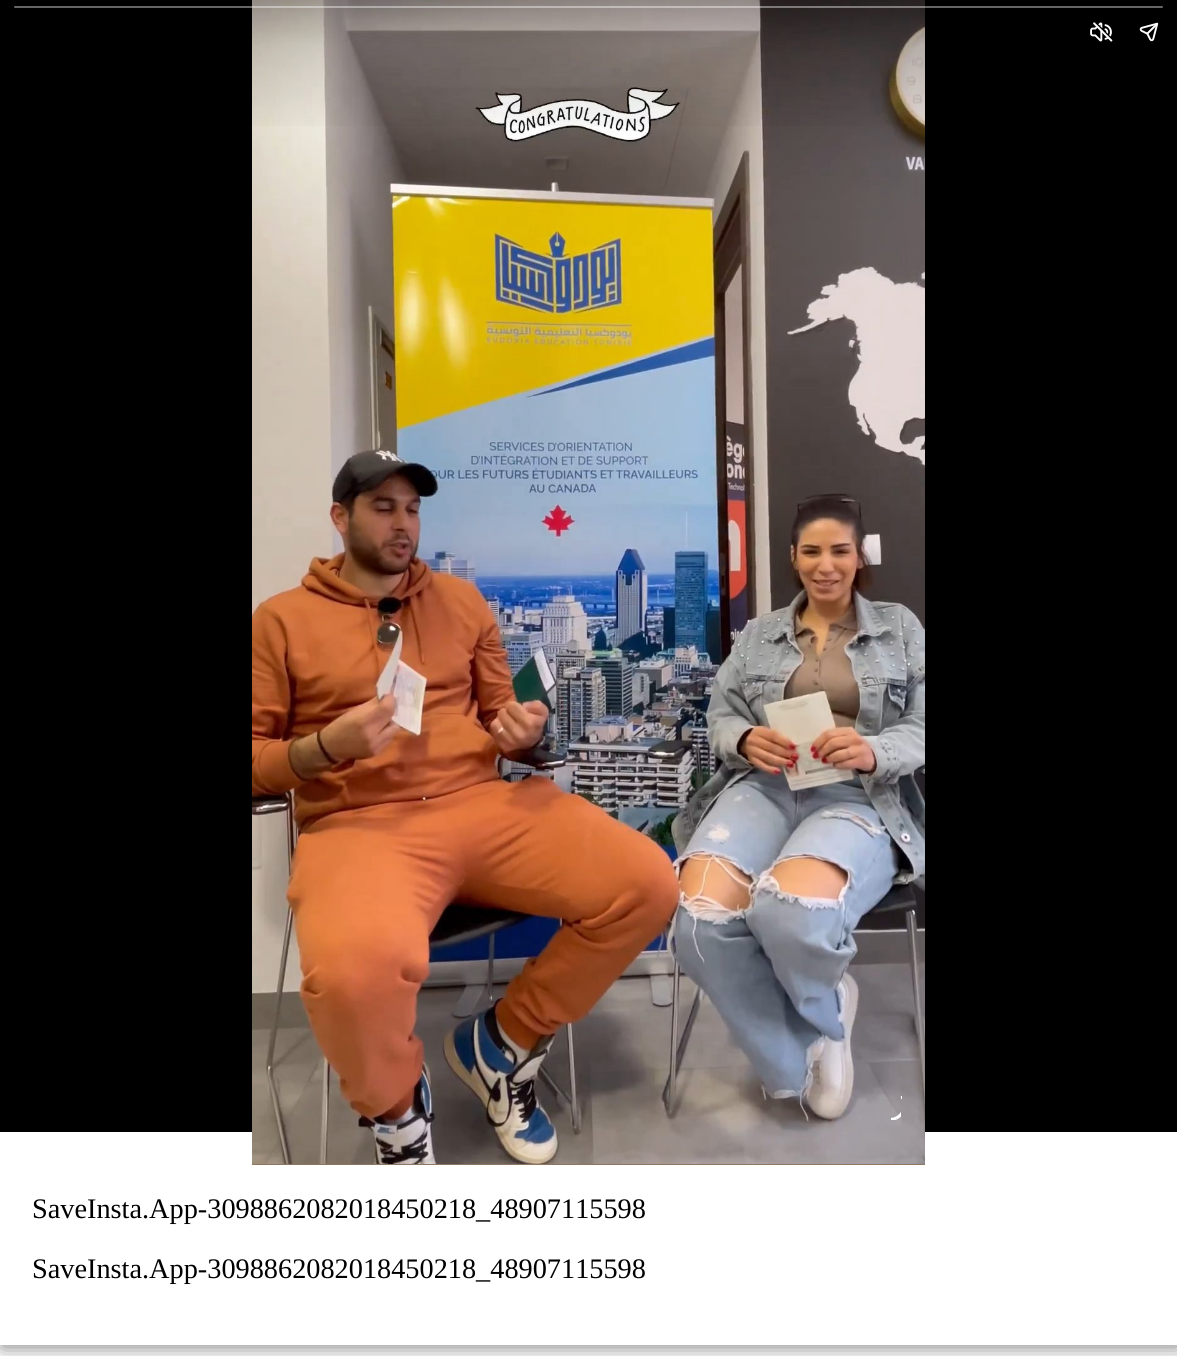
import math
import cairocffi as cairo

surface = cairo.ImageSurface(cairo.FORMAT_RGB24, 1177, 1356)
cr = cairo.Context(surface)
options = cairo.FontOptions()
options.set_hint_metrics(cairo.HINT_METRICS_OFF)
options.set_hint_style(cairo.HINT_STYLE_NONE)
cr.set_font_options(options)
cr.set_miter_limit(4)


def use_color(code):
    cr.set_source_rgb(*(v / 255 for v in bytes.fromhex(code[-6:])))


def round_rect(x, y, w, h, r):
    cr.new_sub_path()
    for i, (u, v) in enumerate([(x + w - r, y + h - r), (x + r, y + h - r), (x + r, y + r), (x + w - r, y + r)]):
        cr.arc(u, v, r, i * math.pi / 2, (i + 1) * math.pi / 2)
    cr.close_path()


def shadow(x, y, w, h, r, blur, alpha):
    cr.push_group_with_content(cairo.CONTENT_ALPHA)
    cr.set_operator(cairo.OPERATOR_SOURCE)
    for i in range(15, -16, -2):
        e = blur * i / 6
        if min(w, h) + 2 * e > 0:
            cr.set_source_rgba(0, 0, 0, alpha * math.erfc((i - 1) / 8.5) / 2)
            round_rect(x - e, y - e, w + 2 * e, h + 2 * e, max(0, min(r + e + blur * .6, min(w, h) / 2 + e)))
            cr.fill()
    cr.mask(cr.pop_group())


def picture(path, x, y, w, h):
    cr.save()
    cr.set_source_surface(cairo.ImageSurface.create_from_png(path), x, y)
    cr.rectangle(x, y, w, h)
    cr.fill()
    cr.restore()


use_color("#ffffff")
cr.paint()
use_color("#000000")
shadow(2, 2, 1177, 1345, 0, 10, 0.5)
use_color("#000000")
cr.rectangle(0, 0, 1177, 1132)
cr.fill()
use_color("#ffffff")
cr.rectangle(0, 1132, 1177, 213)
cr.fill()
picture("img3.png", 252, 0, 673, 1164)
gradient = cairo.LinearGradient(589, 0, 589, 140)
gradient.add_color_stop_rgba(0, 0, 0, 0, 0.27)
gradient.add_color_stop_rgba(0.33, 0, 0, 0, 0.13)
gradient.add_color_stop_rgba(0.67, 0, 0, 0, 0.07)
gradient.add_color_stop_rgba(1, 0, 0, 0, 0)
cr.set_source(gradient)
cr.rectangle(252, 0, 673, 126)
cr.fill()
cr.set_source_rgba(1, 1, 1, 0.4)
round_rect(14, 6, 1149, 2, 1)
cr.fill()
picture("img1.png", 1090, 22, 23, 20)
picture("img2.png", 1139, 22, 20, 20)
use_color("#92755f")
cr.rectangle(252, 1164, 673, 1)
cr.fill()
cr.save()
cr.rectangle(889, 1096, 12, 24)
cr.clip()
cr.new_path()
cr.move_to(888, 1089)
cr.curve_to(891, 1088.5, 894, 1089, 896.5, 1090.5)
cr.curve_to(910, 1097.5, 906, 1118, 891, 1119.5)
use_color("#ffffff")
cr.set_line_width(3)
cr.stroke()
cr.restore()
use_color("#ffffff")
cr.rectangle(901, 1096, 1, 3)
cr.fill()
cr.select_font_face("Liberation Serif")
cr.set_font_size(28.3)
use_color("#000000")
cr.move_to(32, 1218)
cr.show_text("SaveInsta.App-3098862082018450218_48907115598")
cr.move_to(32, 1278)
cr.show_text("SaveInsta.App-3098862082018450218_48907115598")
surface.write_to_png("result.png")
